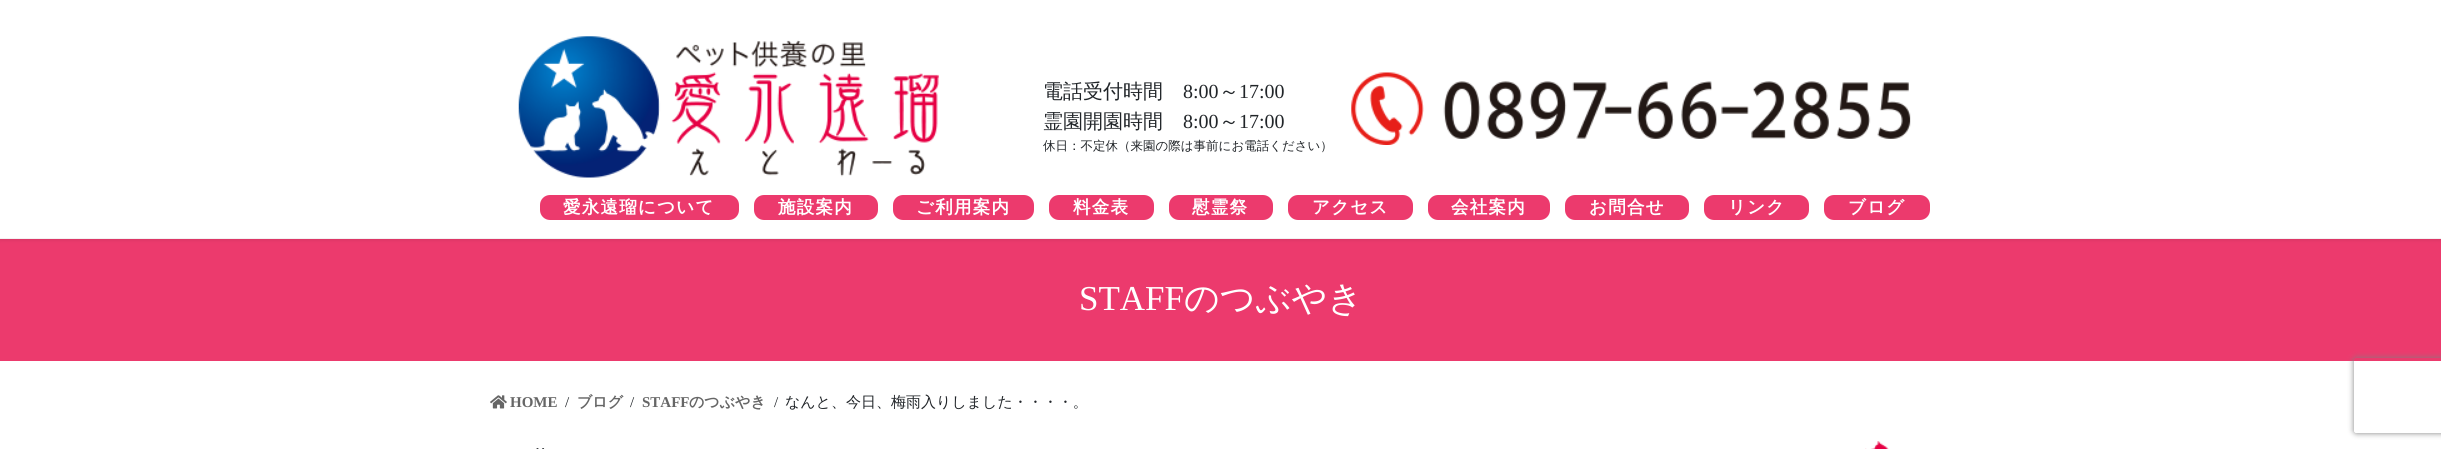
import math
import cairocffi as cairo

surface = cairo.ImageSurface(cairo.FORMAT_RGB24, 2441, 449)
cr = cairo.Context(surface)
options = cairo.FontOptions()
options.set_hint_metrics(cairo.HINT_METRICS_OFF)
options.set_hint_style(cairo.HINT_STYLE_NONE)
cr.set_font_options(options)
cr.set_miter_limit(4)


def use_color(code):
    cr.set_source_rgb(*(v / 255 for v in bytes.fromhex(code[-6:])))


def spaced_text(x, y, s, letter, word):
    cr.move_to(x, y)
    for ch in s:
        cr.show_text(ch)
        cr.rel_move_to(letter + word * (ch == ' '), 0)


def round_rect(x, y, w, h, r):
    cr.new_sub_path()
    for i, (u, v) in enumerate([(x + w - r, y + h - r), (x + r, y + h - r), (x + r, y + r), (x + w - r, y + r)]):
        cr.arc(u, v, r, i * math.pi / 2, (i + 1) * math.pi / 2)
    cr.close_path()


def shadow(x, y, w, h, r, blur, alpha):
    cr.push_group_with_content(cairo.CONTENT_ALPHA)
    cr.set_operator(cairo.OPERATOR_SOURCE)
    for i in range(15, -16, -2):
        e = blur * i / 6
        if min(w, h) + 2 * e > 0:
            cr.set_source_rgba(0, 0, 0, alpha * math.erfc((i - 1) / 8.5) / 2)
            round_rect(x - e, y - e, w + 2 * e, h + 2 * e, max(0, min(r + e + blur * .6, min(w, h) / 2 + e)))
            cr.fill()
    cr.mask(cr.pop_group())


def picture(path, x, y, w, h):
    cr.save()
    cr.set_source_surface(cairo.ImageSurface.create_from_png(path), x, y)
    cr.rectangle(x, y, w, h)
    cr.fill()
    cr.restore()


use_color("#ffffff")
cr.paint()
use_color("#ec3a6d")
cr.rectangle(0, 239, 2441, 122)
cr.fill()
use_color("#000000")
shadow(0, 1, 2441, 239, 0, 2, 0.1)
use_color("#ffffff")
cr.rectangle(0, 0, 2441, 238)
cr.fill()
use_color("#f2f2f2")
cr.rectangle(0, 238, 2441, 1)
cr.fill()
picture("img1.png", 518, 36, 421, 142)
cr.select_font_face("WenQuanYi Zen Hei Medium")
cr.set_font_size(20)
use_color("#212529")
cr.move_to(1043, 98)
cr.show_text("電話受付時間")
cr.select_font_face("Liberation Serif")
cr.move_to(1183, 98)
cr.show_text("8:00")
cr.select_font_face("WenQuanYi Zen Hei Medium")
cr.move_to(1219, 98)
cr.show_text("～")
cr.select_font_face("Liberation Serif")
cr.move_to(1239, 98)
cr.show_text("17:00")
cr.select_font_face("WenQuanYi Zen Hei Medium")
cr.move_to(1043, 128)
cr.show_text("霊園開園時間")
cr.select_font_face("Liberation Serif")
cr.move_to(1183, 128)
cr.show_text("8:00")
cr.select_font_face("WenQuanYi Zen Hei Medium")
cr.move_to(1219, 128)
cr.show_text("～")
cr.select_font_face("Liberation Serif")
cr.move_to(1239, 128)
cr.show_text("17:00")
cr.select_font_face("WenQuanYi Zen Hei Medium")
cr.set_font_size(12.5)
cr.move_to(1043, 150)
cr.show_text("休日：不定休（来園の際は事前にお電話ください）")
picture("img2.png", 1351, 72, 560, 73)
use_color("#ec3a6d")
round_rect(540, 195, 199, 25, 10)
cr.fill()
cr.select_font_face("WenQuanYi Zen Hei", cairo.FONT_SLANT_NORMAL, cairo.FONT_WEIGHT_BOLD)
cr.set_font_size(17.5)
use_color("#ffffff")
spaced_text(563, 213, "愛永遠瑠について", 1.25, 0)
use_color("#ec3a6d")
round_rect(754, 195, 124, 25, 10)
cr.fill()
use_color("#ffffff")
spaced_text(778, 213, "施設案内", 1.25, 0)
use_color("#ec3a6d")
round_rect(893, 195, 141, 25, 10)
cr.fill()
use_color("#ffffff")
spaced_text(916, 213, "ご利用案内", 1.25, 0)
use_color("#ec3a6d")
round_rect(1049, 195, 105, 25, 10)
cr.fill()
use_color("#ffffff")
spaced_text(1073, 213, "料金表", 1.25, 0)
use_color("#ec3a6d")
round_rect(1169, 195, 104, 25, 10)
cr.fill()
use_color("#ffffff")
spaced_text(1192, 213, "慰霊祭", 1.25, 0)
use_color("#ec3a6d")
round_rect(1288, 195, 125, 25, 10)
cr.fill()
use_color("#ffffff")
spaced_text(1312, 213, "アクセス", 1.25, 0)
use_color("#ec3a6d")
round_rect(1428, 195, 122, 25, 10)
cr.fill()
use_color("#ffffff")
spaced_text(1451, 213, "会社案内", 1.25, 0)
use_color("#ec3a6d")
round_rect(1565, 195, 124, 25, 10)
cr.fill()
use_color("#ffffff")
spaced_text(1589, 213, "お問合せ", 1.25, 0)
use_color("#ec3a6d")
round_rect(1704, 195, 105, 25, 10)
cr.fill()
use_color("#ffffff")
spaced_text(1728, 213, "リンク", 1.25, 0)
use_color("#ec3a6d")
round_rect(1824, 195, 106, 25, 10)
cr.fill()
use_color("#ffffff")
spaced_text(1848, 213, "ブログ", 1.25, 0)
cr.select_font_face("Liberation Serif")
cr.set_font_size(35)
cr.move_to(1079, 310)
cr.show_text("STAFF")
cr.select_font_face("WenQuanYi Zen Hei Medium")
cr.move_to(1184, 310)
cr.show_text("のつぶやき")
picture("img3.png", 490, 395, 17, 14)
cr.select_font_face("Liberation Serif", cairo.FONT_SLANT_NORMAL, cairo.FONT_WEIGHT_BOLD)
cr.set_font_size(15)
use_color("#666666")
cr.move_to(510, 407)
cr.show_text("HOME")
cr.select_font_face("Liberation Serif")
use_color("#212529")
cr.move_to(565, 407)
cr.show_text("/")
cr.select_font_face("WenQuanYi Zen Hei", cairo.FONT_SLANT_NORMAL, cairo.FONT_WEIGHT_BOLD)
use_color("#666666")
cr.move_to(577, 407)
cr.show_text("ブログ")
cr.select_font_face("Liberation Serif")
use_color("#212529")
cr.move_to(630, 407)
cr.show_text("/")
cr.select_font_face("Liberation Serif", cairo.FONT_SLANT_NORMAL, cairo.FONT_WEIGHT_BOLD)
use_color("#666666")
cr.move_to(642, 407)
cr.show_text("STAFF")
cr.select_font_face("WenQuanYi Zen Hei", cairo.FONT_SLANT_NORMAL, cairo.FONT_WEIGHT_BOLD)
cr.move_to(689, 407)
cr.show_text("のつぶやき")
cr.select_font_face("Liberation Serif")
use_color("#212529")
cr.move_to(774, 407)
cr.show_text("/")
cr.select_font_face("WenQuanYi Zen Hei Medium")
cr.move_to(785, 407)
cr.show_text("なんと、今日、梅雨入りしました・・・・。")
cr.save()
cr.set_fill_rule(cairo.FILL_RULE_EVEN_ODD)
cr.new_path()
cr.move_to(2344, 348)
cr.line_to(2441, 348)
cr.line_to(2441, 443)
cr.line_to(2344, 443)
cr.close_path()
cr.move_to(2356.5, 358)
cr.line_to(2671.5, 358)
cr.curve_to(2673, 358, 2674, 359, 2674, 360.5)
cr.line_to(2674, 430.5)
cr.curve_to(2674, 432, 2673, 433, 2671.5, 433)
cr.line_to(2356.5, 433)
cr.curve_to(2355, 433, 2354, 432, 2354, 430.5)
cr.line_to(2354, 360.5)
cr.curve_to(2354, 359, 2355, 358, 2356.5, 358)
cr.close_path()
cr.clip()
use_color("#808080")
shadow(2354, 358, 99, 75, 2.5, 3, 1)
cr.restore()
picture("img4.png", 536, 448, 9, 1)
picture("img5.png", 1865, 441, 24, 8)
surface.write_to_png("result.png")
